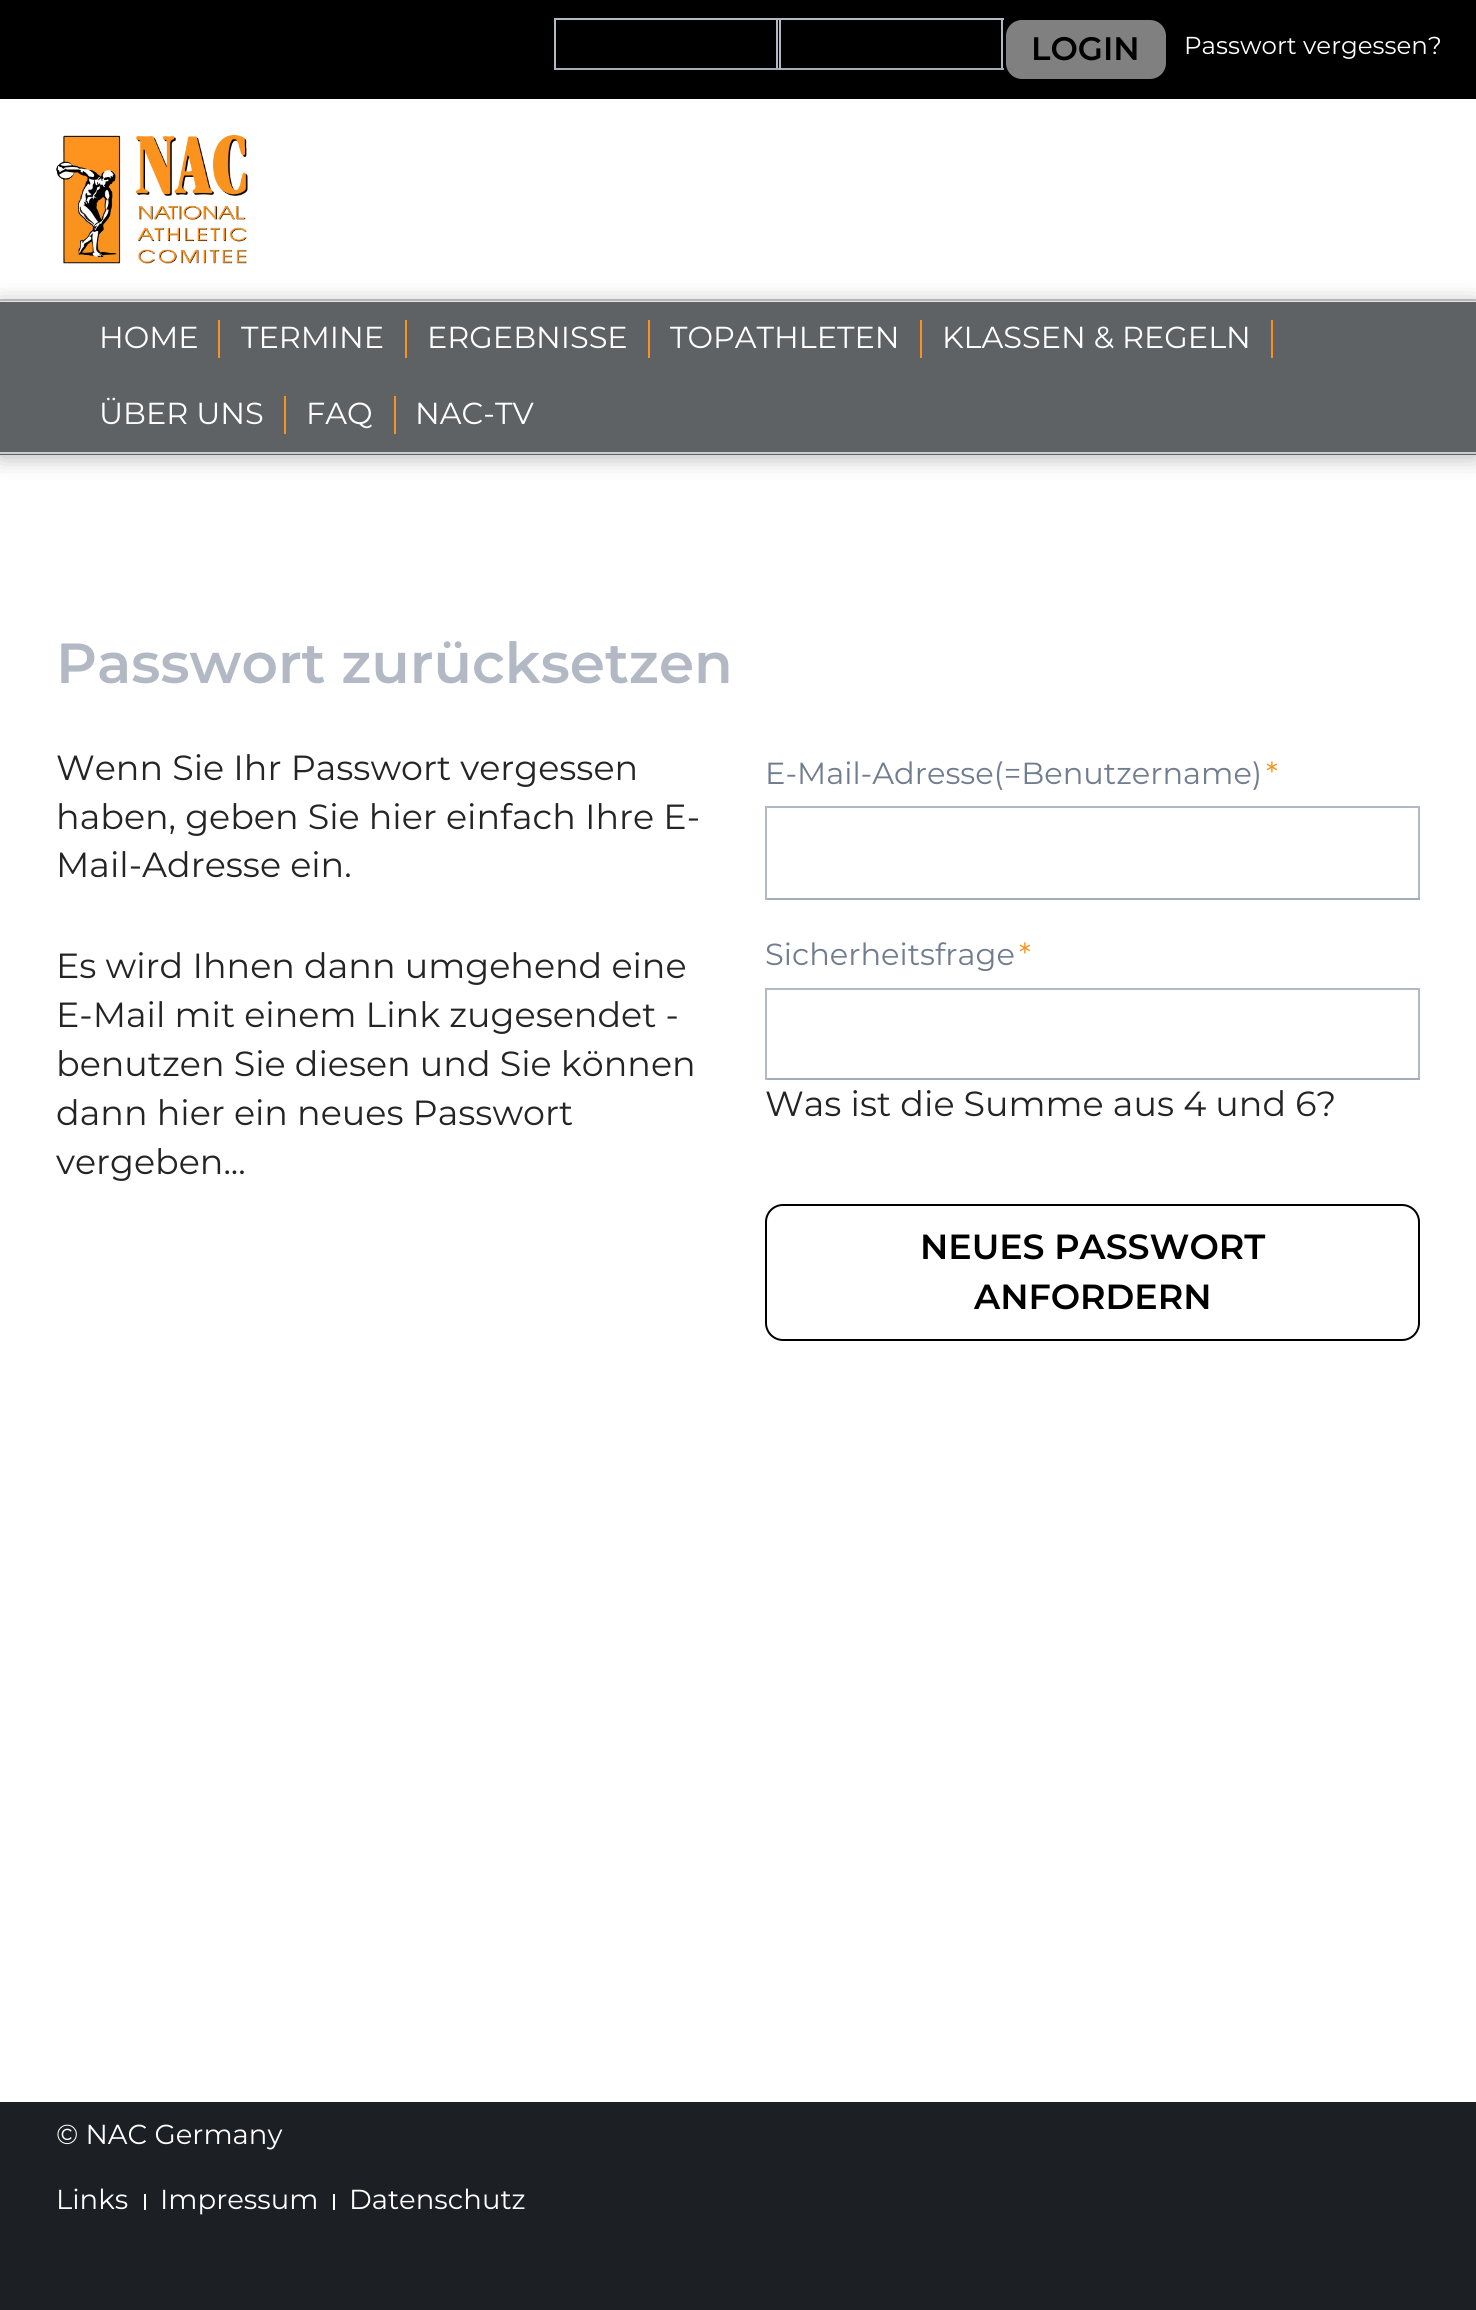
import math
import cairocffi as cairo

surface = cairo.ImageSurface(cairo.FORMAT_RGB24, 1476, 2310)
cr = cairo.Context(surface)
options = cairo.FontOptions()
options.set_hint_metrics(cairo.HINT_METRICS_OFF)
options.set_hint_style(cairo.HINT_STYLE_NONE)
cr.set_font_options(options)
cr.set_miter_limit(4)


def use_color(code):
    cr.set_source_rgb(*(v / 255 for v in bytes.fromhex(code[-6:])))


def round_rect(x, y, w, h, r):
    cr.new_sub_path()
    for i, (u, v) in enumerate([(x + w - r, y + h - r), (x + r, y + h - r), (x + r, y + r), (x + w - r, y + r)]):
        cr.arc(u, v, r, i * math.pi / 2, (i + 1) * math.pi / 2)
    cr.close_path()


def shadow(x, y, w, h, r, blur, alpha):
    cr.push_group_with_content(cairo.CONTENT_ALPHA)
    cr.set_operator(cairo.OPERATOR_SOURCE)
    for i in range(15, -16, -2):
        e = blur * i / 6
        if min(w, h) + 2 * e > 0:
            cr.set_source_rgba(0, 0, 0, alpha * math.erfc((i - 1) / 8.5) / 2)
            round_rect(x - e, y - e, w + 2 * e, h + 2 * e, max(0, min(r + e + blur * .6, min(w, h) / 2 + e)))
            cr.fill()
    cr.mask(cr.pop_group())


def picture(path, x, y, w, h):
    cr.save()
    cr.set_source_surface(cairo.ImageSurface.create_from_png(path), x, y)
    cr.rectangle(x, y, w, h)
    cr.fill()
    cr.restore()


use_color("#ffffff")
cr.paint()
use_color("#000000")
cr.rectangle(0, 0, 1476, 99)
cr.fill()
use_color("#b2b9c4")
cr.rectangle(554, 18, 450, 2)
cr.fill()
cr.rectangle(776, 18, 2, 52)
cr.fill()
use_color("#a4acb9")
cr.rectangle(554, 68, 225, 2)
cr.fill()
use_color("#b2b9c4")
cr.rectangle(554, 18, 2, 52)
cr.fill()
cr.rectangle(1001, 18, 2, 52)
cr.fill()
use_color("#a4acb9")
cr.rectangle(779, 68, 225, 2)
cr.fill()
use_color("#b2b9c4")
cr.rectangle(779, 18, 2, 52)
cr.fill()
use_color("#808080")
round_rect(1005, 19, 162, 61, 17)
cr.fill_preserve()
use_color("#000000")
cr.stroke()
cr.select_font_face("Montserrat SemiBold")
cr.set_font_size(32.5)
cr.move_to(1031, 60)
cr.show_text("LOGIN")
cr.select_font_face("Montserrat")
cr.set_font_size(24.5)
use_color("#ffffff")
cr.move_to(1184, 54)
cr.show_text("Passwort vergessen?")
use_color("#cccccc")
cr.rectangle(0, 299, 1476, 2)
cr.fill()
picture("img1.png", 56, 135, 192, 129)
cr.save()
cr.set_fill_rule(cairo.FILL_RULE_EVEN_ODD)
cr.new_path()
cr.move_to(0, 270)
cr.line_to(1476, 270)
cr.line_to(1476, 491)
cr.line_to(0, 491)
cr.close_path()
cr.move_to(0, 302)
cr.line_to(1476, 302)
cr.line_to(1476, 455)
cr.line_to(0, 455)
cr.close_path()
cr.clip()
use_color("#000000")
shadow(0, 304, 1476, 153, 0, 11, 0.3)
cr.restore()
cr.set_source_rgba(0.11, 0.125, 0.141, 0.7)
cr.rectangle(0, 302, 1476, 153)
cr.fill()
use_color("#cccccc")
cr.rectangle(0, 452, 1476, 2)
cr.fill()
cr.set_font_size(30.4)
use_color("#ffffff")
cr.move_to(99, 348)
cr.show_text("HOME")
use_color("#f7931e")
cr.rectangle(218, 320, 2, 38)
cr.fill()
use_color("#ffffff")
cr.move_to(241, 348)
cr.show_text("TERMINE")
use_color("#f7931e")
cr.rectangle(405, 320, 2, 38)
cr.fill()
use_color("#ffffff")
cr.move_to(427, 348)
cr.show_text("ERGEBNISSE")
use_color("#f7931e")
cr.rectangle(648, 320, 2, 38)
cr.fill()
use_color("#ffffff")
cr.move_to(670, 348)
cr.show_text("TOPATHLETEN")
use_color("#f7931e")
cr.rectangle(920, 320, 2, 38)
cr.fill()
use_color("#ffffff")
cr.move_to(942, 348)
cr.show_text("KLASSEN & REGELN")
use_color("#f7931e")
cr.rectangle(1271, 320, 2, 38)
cr.fill()
use_color("#ffffff")
cr.move_to(99, 424)
cr.show_text("ÜBER UNS")
use_color("#f7931e")
cr.rectangle(284, 396, 2, 38)
cr.fill()
use_color("#ffffff")
cr.move_to(306, 424)
cr.show_text("FAQ")
use_color("#f7931e")
cr.rectangle(394, 396, 2, 38)
cr.fill()
use_color("#ffffff")
cr.move_to(415, 424)
cr.show_text("NAC-TV")
cr.select_font_face("Montserrat SemiBold")
cr.set_font_size(56.5)
use_color("#b2b9c4")
cr.move_to(56, 683)
cr.show_text("Passwort zurücksetzen")
cr.select_font_face("Montserrat")
cr.set_font_size(34.9)
use_color("#242424")
cr.move_to(56, 780)
cr.show_text("Wenn Sie Ihr Passwort vergessen")
cr.move_to(56, 829)
cr.show_text("haben, geben Sie hier einfach Ihre E-")
cr.move_to(56, 877)
cr.show_text("Mail-Adresse ein.")
cr.move_to(56, 978)
cr.show_text("Es wird Ihnen dann umgehend eine")
cr.move_to(56, 1027)
cr.show_text("E-Mail mit einem Link zugesendet -")
cr.move_to(56, 1076)
cr.show_text("benutzen Sie diesen und Sie können")
cr.move_to(56, 1125)
cr.show_text("dann hier ein neues Passwort")
cr.move_to(56, 1174)
cr.show_text("vergeben...")
cr.set_font_size(30.5)
use_color("#717c8e")
cr.move_to(765, 784)
cr.show_text("E-Mail-Adresse(=Benutzername)")
use_color("#f7931e")
cr.move_to(1266, 784)
cr.show_text("*")
use_color("#b2b9c4")
cr.rectangle(765, 806, 655, 2)
cr.fill()
cr.rectangle(1418, 806, 2, 94)
cr.fill()
use_color("#a4acb9")
cr.rectangle(765, 898, 655, 2)
cr.fill()
use_color("#b2b9c4")
cr.rectangle(765, 806, 2, 94)
cr.fill()
use_color("#717c8e")
cr.move_to(765, 965)
cr.show_text("Sicherheitsfrage")
use_color("#f7931e")
cr.move_to(1019, 965)
cr.show_text("*")
use_color("#b2b9c4")
cr.rectangle(765, 988, 655, 2)
cr.fill()
cr.rectangle(1418, 988, 2, 92)
cr.fill()
use_color("#a4acb9")
cr.rectangle(765, 1078, 655, 2)
cr.fill()
use_color("#b2b9c4")
cr.rectangle(765, 988, 2, 92)
cr.fill()
cr.set_font_size(34.9)
use_color("#242424")
cr.move_to(765, 1116)
cr.show_text("Was ist die Summe aus 4 und 6?")
round_rect(766, 1205, 653, 135, 17)
use_color("#000000")
cr.stroke()
cr.select_font_face("Montserrat SemiBold")
cr.move_to(920, 1259)
cr.show_text("NEUES PASSWORT")
cr.move_to(974, 1309)
cr.show_text("ANFORDERN")
use_color("#1c2024")
cr.rectangle(0, 2102, 1476, 208)
cr.fill()
cr.select_font_face("Montserrat")
cr.set_font_size(27.5)
use_color("#ffffff")
cr.move_to(56, 2144)
cr.show_text("© NAC Germany")
cr.move_to(56, 2209)
cr.show_text("Links")
cr.rectangle(144, 2194, 2, 16)
cr.fill()
cr.move_to(160, 2209)
cr.show_text("Impressum")
cr.rectangle(333, 2194, 2, 16)
cr.fill()
cr.move_to(349, 2209)
cr.show_text("Datenschutz")
surface.write_to_png("result.png")
